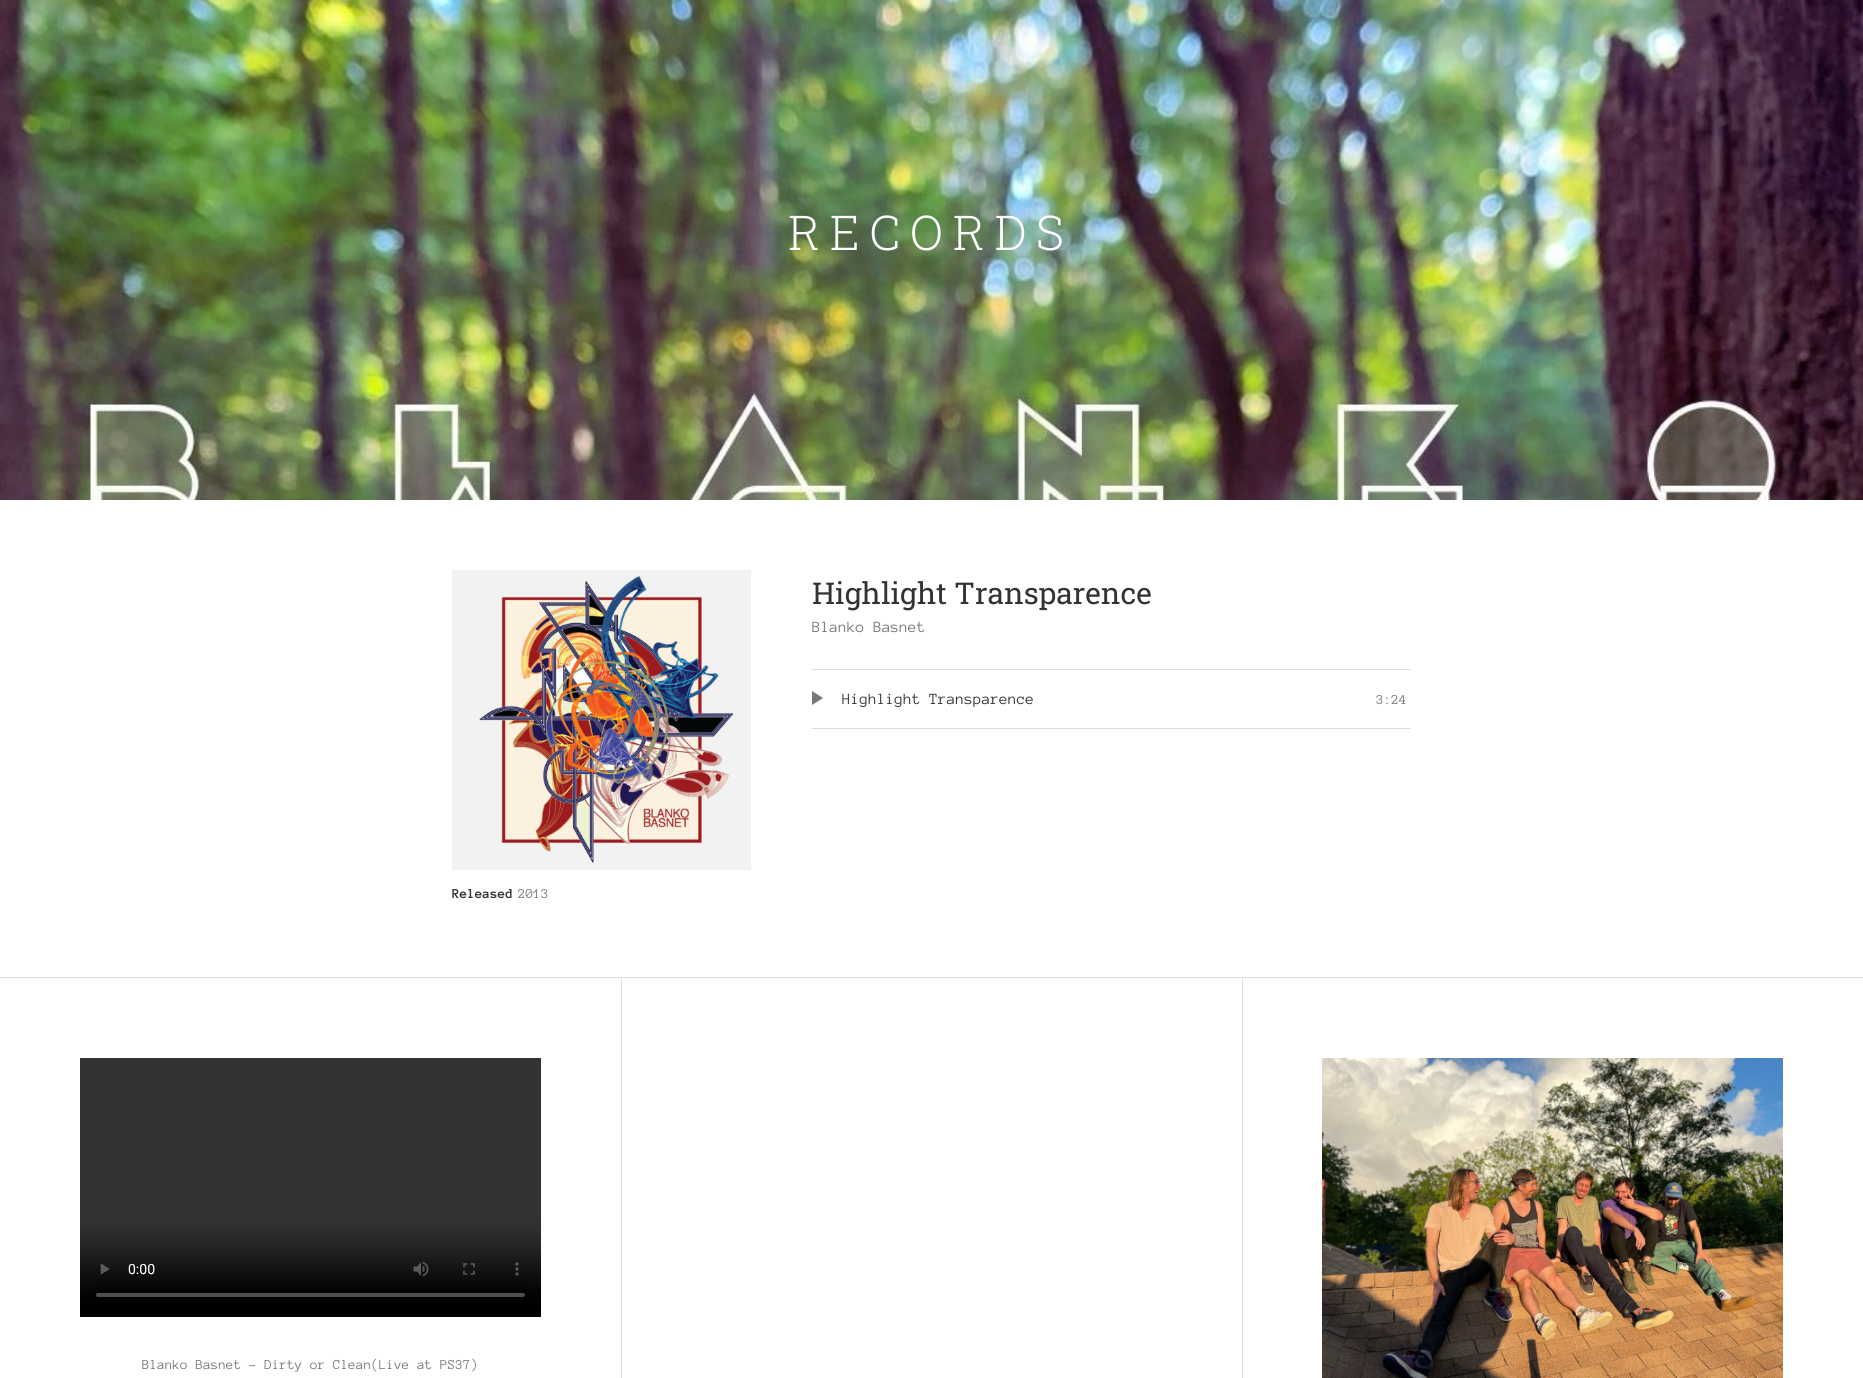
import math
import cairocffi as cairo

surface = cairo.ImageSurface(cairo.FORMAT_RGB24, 1863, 1378)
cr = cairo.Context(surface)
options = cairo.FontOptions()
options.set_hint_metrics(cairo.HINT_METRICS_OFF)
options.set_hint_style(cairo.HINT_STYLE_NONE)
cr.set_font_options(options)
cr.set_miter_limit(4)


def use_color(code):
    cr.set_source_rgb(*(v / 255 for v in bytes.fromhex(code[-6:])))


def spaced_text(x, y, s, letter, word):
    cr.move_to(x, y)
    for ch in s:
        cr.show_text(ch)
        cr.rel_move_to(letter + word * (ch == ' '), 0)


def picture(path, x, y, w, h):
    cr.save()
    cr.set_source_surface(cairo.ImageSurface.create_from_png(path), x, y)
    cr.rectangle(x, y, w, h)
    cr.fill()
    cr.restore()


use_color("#ffffff")
cr.paint()
picture("img1.png", 0, 0, 1863, 500)
cr.select_font_face("Roboto Slab Light")
cr.set_font_size(48)
use_color("#ffffff")
spaced_text(788, 250, "RECORDS", 9.5, 0)
use_color("#dddddd")
cr.rectangle(0, 977, 1863, 1)
cr.fill()
cr.select_font_face("Roboto Slab")
cr.set_font_size(30)
use_color("#333333")
cr.move_to(812, 604)
cr.show_text("Highlight Transparence")
cr.select_font_face("Anonymous Pro")
cr.set_font_size(16)
use_color("#777777")
cr.move_to(812, 632)
cr.show_text("Blanko Basnet")
use_color("#dddddd")
cr.rectangle(812, 669, 599, 1)
cr.fill()
cr.rectangle(812, 728, 599, 1)
cr.fill()
use_color("#777777")
cr.new_path()
cr.move_to(812, 691)
cr.line_to(812, 705)
cr.line_to(823, 698)
cr.close_path()
cr.fill()
use_color("#333333")
cr.move_to(842, 704)
cr.show_text("Highlight Transparence")
cr.set_font_size(14)
use_color("#777777")
cr.move_to(1376, 704)
cr.show_text("3:24")
picture("img2.png", 452, 570, 299, 300)
cr.select_font_face("Anonymous Pro", cairo.FONT_SLANT_NORMAL, cairo.FONT_WEIGHT_BOLD)
use_color("#333333")
cr.move_to(452, 898)
cr.show_text("Released")
cr.select_font_face("Anonymous Pro")
use_color("#777777")
cr.move_to(518, 898)
cr.show_text("2013")
picture("img3.png", 80, 1058, 461, 259)
cr.move_to(142, 1369)
cr.show_text("Blanko Basnet - Dirty or Clean(Live at PS37)")
use_color("#dddddd")
cr.rectangle(621, 978, 1, 400)
cr.fill()
cr.rectangle(1242, 978, 1, 400)
cr.fill()
picture("img4.png", 1322, 1058, 461, 320)
surface.write_to_png("result.png")
